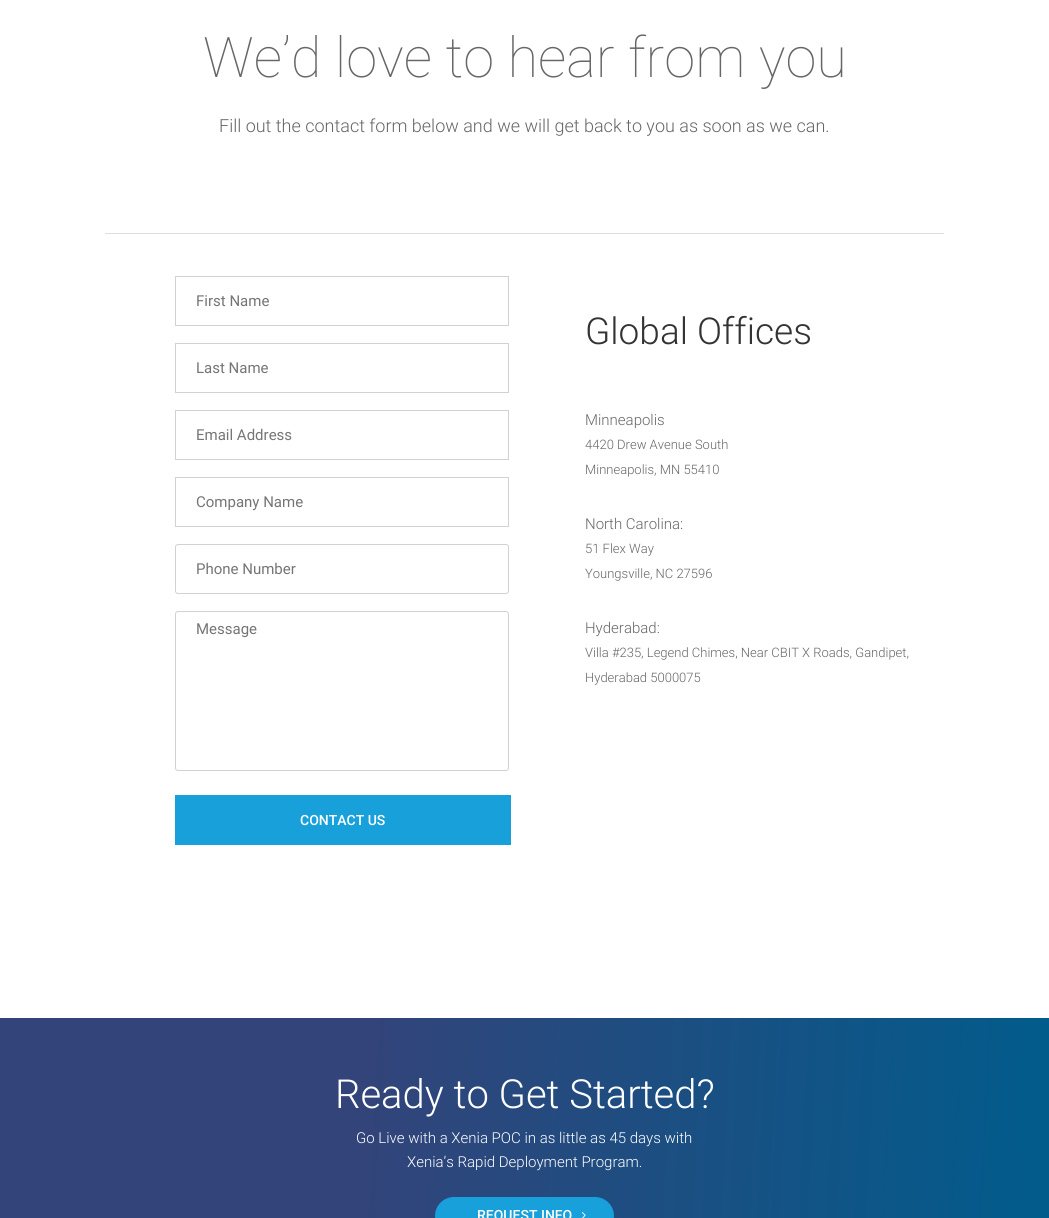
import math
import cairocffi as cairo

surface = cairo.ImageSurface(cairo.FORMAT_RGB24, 1049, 1218)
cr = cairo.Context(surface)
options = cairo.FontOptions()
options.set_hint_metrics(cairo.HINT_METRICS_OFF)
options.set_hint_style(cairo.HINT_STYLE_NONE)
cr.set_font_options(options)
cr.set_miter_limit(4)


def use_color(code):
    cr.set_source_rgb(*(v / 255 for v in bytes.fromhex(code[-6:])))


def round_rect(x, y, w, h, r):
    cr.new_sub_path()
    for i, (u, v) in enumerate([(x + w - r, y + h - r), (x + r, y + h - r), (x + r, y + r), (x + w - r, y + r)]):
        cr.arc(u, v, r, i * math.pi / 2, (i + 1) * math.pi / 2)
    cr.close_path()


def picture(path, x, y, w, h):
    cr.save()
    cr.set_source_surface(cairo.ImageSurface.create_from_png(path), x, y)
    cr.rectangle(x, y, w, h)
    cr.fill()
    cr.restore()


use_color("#ffffff")
cr.paint()
use_color("#dfdfdf")
cr.rectangle(105, 233, 839, 1)
cr.fill()
cr.select_font_face("Roboto Thin")
cr.set_font_size(56)
use_color("#666666")
cr.move_to(203, 77)
cr.show_text("We’d love to hear from you")
cr.select_font_face("Roboto Light")
cr.set_font_size(18)
cr.move_to(219, 132)
cr.show_text("Fill out the contact form below and we will get back to you as soon as we can.")
cr.rectangle(175.5, 276.5, 333, 49)
use_color("#d2d2d2")
cr.set_line_width(1)
cr.stroke()
cr.select_font_face("Roboto")
cr.set_font_size(15)
use_color("#757575")
cr.move_to(196, 306)
cr.show_text("First Name")
cr.rectangle(175.5, 343.5, 333, 49)
use_color("#d2d2d2")
cr.stroke()
use_color("#757575")
cr.move_to(196, 373)
cr.show_text("Last Name")
cr.rectangle(175.5, 410.5, 333, 49)
use_color("#d2d2d2")
cr.stroke()
use_color("#757575")
cr.move_to(196, 440)
cr.show_text("Email Address")
cr.rectangle(175.5, 477.5, 333, 49)
use_color("#d2d2d2")
cr.stroke()
use_color("#757575")
cr.move_to(196, 507)
cr.show_text("Company Name")
round_rect(175.5, 544.5, 333, 49, 2.5)
use_color("#d2d2d2")
cr.stroke()
use_color("#757575")
cr.move_to(196, 574)
cr.show_text("Phone Number")
round_rect(175.5, 611.5, 333, 159, 2.5)
use_color("#d2d2d2")
cr.stroke()
use_color("#757575")
cr.move_to(196, 634)
cr.show_text("Message")
use_color("#17a0da")
cr.rectangle(175, 795, 336, 50)
cr.fill()
cr.select_font_face("Roboto Medium")
cr.set_font_size(14)
use_color("#ffffff")
cr.move_to(300, 825)
cr.show_text("CONTACT US")
cr.select_font_face("Roboto Light")
cr.set_font_size(37)
use_color("#333333")
cr.move_to(585, 344)
cr.show_text("Global Offices")
cr.set_font_size(15)
use_color("#666666")
cr.move_to(585, 425)
cr.show_text("Minneapolis")
cr.set_font_size(13)
cr.move_to(585, 449)
cr.show_text("4420 Drew Avenue South")
cr.move_to(585, 474)
cr.show_text("Minneapolis, MN 55410")
cr.set_font_size(15)
cr.move_to(585, 529)
cr.show_text("North Carolina:")
cr.set_font_size(13)
cr.move_to(585, 553)
cr.show_text("51 Flex Way")
cr.move_to(585, 578)
cr.show_text("Youngsville, NC 27596")
cr.set_font_size(15)
cr.move_to(585, 633)
cr.show_text("Hyderabad:")
cr.set_font_size(13)
cr.move_to(585, 657)
cr.show_text("Villa #235, Legend Chimes, Near CBIT X Roads, Gandipet,")
cr.move_to(585, 682)
cr.show_text("Hyderabad 5000075")
gradient = cairo.LinearGradient(-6.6, 1144, 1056, 1200)
gradient.add_color_stop_rgba(0.35, 0.196, 0.267, 0.478, 1)
gradient.add_color_stop_rgba(1, 0, 0.361, 0.549, 1)
cr.set_source(gradient)
cr.rectangle(0, 1018, 1049, 200)
cr.fill()
cr.set_font_size(40)
use_color("#ffffff")
cr.move_to(335, 1108)
cr.show_text("Ready to Get Started?")
cr.set_font_size(15)
cr.move_to(356, 1143)
cr.show_text("Go Live with a Xenia POC in as little as 45 days with")
cr.move_to(407, 1167)
cr.show_text("Xenia’s Rapid Deployment Program.")
use_color("#17a0da")
round_rect(435, 1197, 179, 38, 19)
cr.fill()
cr.select_font_face("Roboto Medium")
cr.set_font_size(14)
use_color("#ffffff")
cr.move_to(477, 1220)
cr.show_text("REQUEST INFO")
picture("img1.png", 582, 1212, 4, 6)
surface.write_to_png("result.png")
